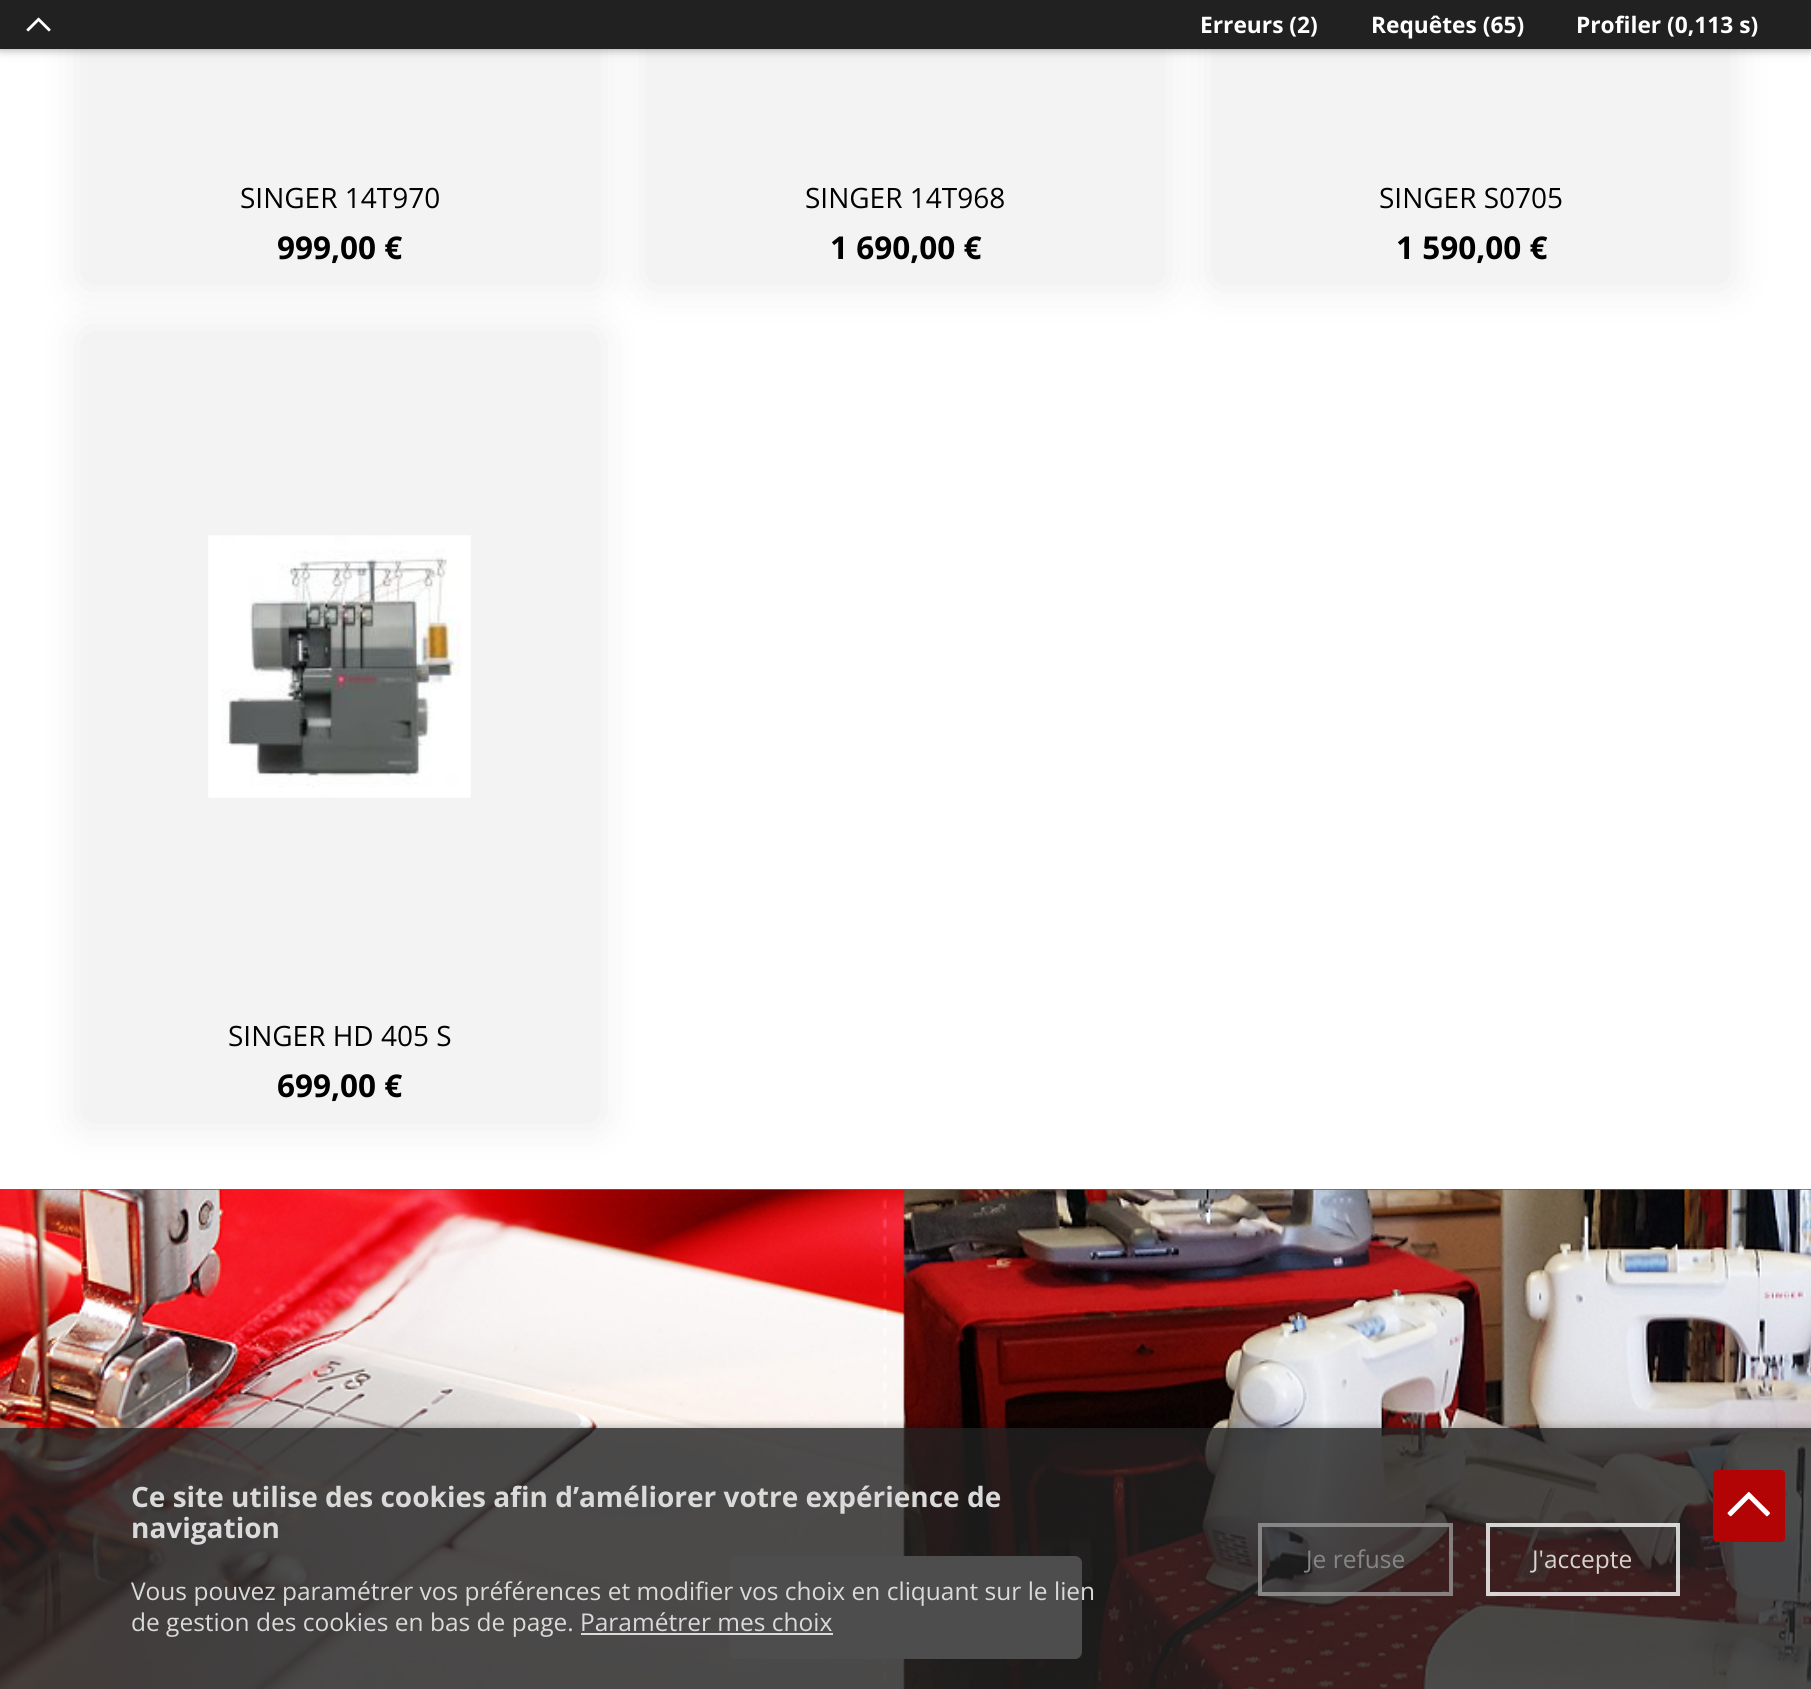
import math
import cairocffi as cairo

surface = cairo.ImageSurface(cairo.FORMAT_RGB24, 1811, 1689)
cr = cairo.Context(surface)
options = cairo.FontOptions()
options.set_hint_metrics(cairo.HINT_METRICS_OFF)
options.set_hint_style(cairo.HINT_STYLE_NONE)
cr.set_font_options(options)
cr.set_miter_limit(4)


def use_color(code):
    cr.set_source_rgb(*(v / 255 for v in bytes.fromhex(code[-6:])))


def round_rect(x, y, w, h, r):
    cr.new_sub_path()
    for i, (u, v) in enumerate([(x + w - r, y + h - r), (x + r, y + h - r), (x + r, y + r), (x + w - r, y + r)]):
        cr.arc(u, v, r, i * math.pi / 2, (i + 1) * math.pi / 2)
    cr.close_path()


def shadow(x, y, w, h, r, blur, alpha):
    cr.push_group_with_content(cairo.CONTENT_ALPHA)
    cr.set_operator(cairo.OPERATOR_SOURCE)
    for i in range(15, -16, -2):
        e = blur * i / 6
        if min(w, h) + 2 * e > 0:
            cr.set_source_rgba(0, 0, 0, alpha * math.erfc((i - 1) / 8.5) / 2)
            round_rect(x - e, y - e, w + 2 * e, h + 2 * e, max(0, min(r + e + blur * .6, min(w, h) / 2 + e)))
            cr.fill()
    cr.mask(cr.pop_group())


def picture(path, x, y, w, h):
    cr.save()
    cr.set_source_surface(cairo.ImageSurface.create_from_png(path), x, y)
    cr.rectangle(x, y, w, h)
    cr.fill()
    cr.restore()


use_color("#ffffff")
cr.paint()
use_color("#000000")
shadow(84, -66, 513, 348, 0, 22, 0.1)
use_color("#f3f3f3")
cr.rectangle(84, 49, 513, 233)
cr.fill()
use_color("#000000")
shadow(649, -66, 513, 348, 0, 22, 0.1)
use_color("#f3f3f3")
cr.rectangle(649, 49, 513, 233)
cr.fill()
use_color("#000000")
shadow(1215, -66, 512, 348, 0, 22, 0.1)
use_color("#f3f3f3")
cr.rectangle(1215, 49, 512, 233)
cr.fill()
use_color("#000000")
shadow(0, 0, 1811, 49, 0, 5, 0.4)
use_color("#212121")
cr.rectangle(0, 0, 1811, 49)
cr.fill()
picture("img1.png", 26, 17, 25, 15)
cr.select_font_face("Open Sans", cairo.FONT_SLANT_NORMAL, cairo.FONT_WEIGHT_BOLD)
cr.set_font_size(22.75)
use_color("#ffffff")
cr.move_to(1200, 33)
cr.show_text("Erreurs (2)")
cr.move_to(1371, 33)
cr.show_text("Requêtes (65)")
cr.move_to(1576, 33)
cr.show_text("Profiler (0,113 s)")
cr.select_font_face("Open Sans")
cr.set_font_size(28)
use_color("#000000")
cr.move_to(240, 208)
cr.show_text("SINGER 14T970")
cr.select_font_face("Open Sans", cairo.FONT_SLANT_NORMAL, cairo.FONT_WEIGHT_BOLD)
cr.set_font_size(31.5)
cr.move_to(277, 259)
cr.show_text("999,00 €")
cr.select_font_face("Open Sans")
cr.set_font_size(28)
cr.move_to(805, 208)
cr.show_text("SINGER 14T968")
cr.select_font_face("Open Sans", cairo.FONT_SLANT_NORMAL, cairo.FONT_WEIGHT_BOLD)
cr.set_font_size(31.5)
cr.move_to(830, 259)
cr.show_text("1 690,00 €")
cr.select_font_face("Open Sans")
cr.set_font_size(28)
cr.move_to(1379, 208)
cr.show_text("SINGER S0705")
cr.select_font_face("Open Sans", cairo.FONT_SLANT_NORMAL, cairo.FONT_WEIGHT_BOLD)
cr.set_font_size(31.5)
cr.move_to(1396, 259)
cr.show_text("1 590,00 €")
use_color("#000000")
shadow(84, 334, 513, 786, 0, 22, 0.1)
use_color("#f3f3f3")
cr.rectangle(84, 334, 513, 786)
cr.fill()
picture("img2.png", 208, 535, 263, 263)
cr.select_font_face("Open Sans")
cr.set_font_size(28)
use_color("#000000")
cr.move_to(228, 1046)
cr.show_text("SINGER HD 405 S")
cr.select_font_face("Open Sans", cairo.FONT_SLANT_NORMAL, cairo.FONT_WEIGHT_BOLD)
cr.set_font_size(31.5)
cr.move_to(277, 1097)
cr.show_text("699,00 €")
use_color("#ec2528")
cr.rectangle(0, 1189, 1811, 1)
cr.fill()
picture("img3.png", 0, 1189, 1811, 500)
use_color("#ffffff")
round_rect(730, 1556, 352, 103, 7)
cr.fill()
cr.save()
cr.rectangle(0, 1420, 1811, 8)
cr.clip()
use_color("#000000")
shadow(0, 1428, 1811, 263, 0, 5, 0.32)
cr.restore()
cr.set_source_rgba(0.129, 0.129, 0.129, 0.8)
cr.rectangle(0, 1428, 1811, 261)
cr.fill()
cr.set_font_size(28)
use_color("#dadada")
cr.move_to(131, 1507)
cr.show_text("Ce site utilise des cookies afin d’améliorer votre expérience de")
cr.move_to(131, 1538)
cr.show_text("navigation")
cr.select_font_face("Open Sans")
cr.set_font_size(24.5)
cr.move_to(131, 1600)
cr.show_text("Vous pouvez paramétrer vos préférences et modifier vos choix en cliquant sur le lien")
cr.move_to(131, 1631)
cr.show_text("de gestion des cookies en bas de page.")
cr.move_to(580, 1631)
cr.show_text("Paramétrer mes choix")
cr.set_source_rgba(1, 1, 1, 0.8)
cr.rectangle(581, 1633, 252, 2)
cr.fill()
cr.rectangle(1260, 1525, 191, 69)
cr.set_source_rgba(0.6, 0.6, 0.6, 0.8)
cr.set_line_width(4)
cr.stroke()
use_color("#878686")
cr.move_to(1306, 1568)
cr.show_text("Je refuse")
cr.rectangle(1488, 1525, 190, 69)
cr.set_source_rgba(1, 1, 1, 0.8)
cr.stroke()
use_color("#d8d3d3")
cr.move_to(1532, 1568)
cr.show_text("J'accepte")
use_color("#b20405")
round_rect(1713, 1470, 72, 72, 4)
cr.fill()
picture("img4.png", 1727, 1491, 43, 26)
surface.write_to_png("result.png")
